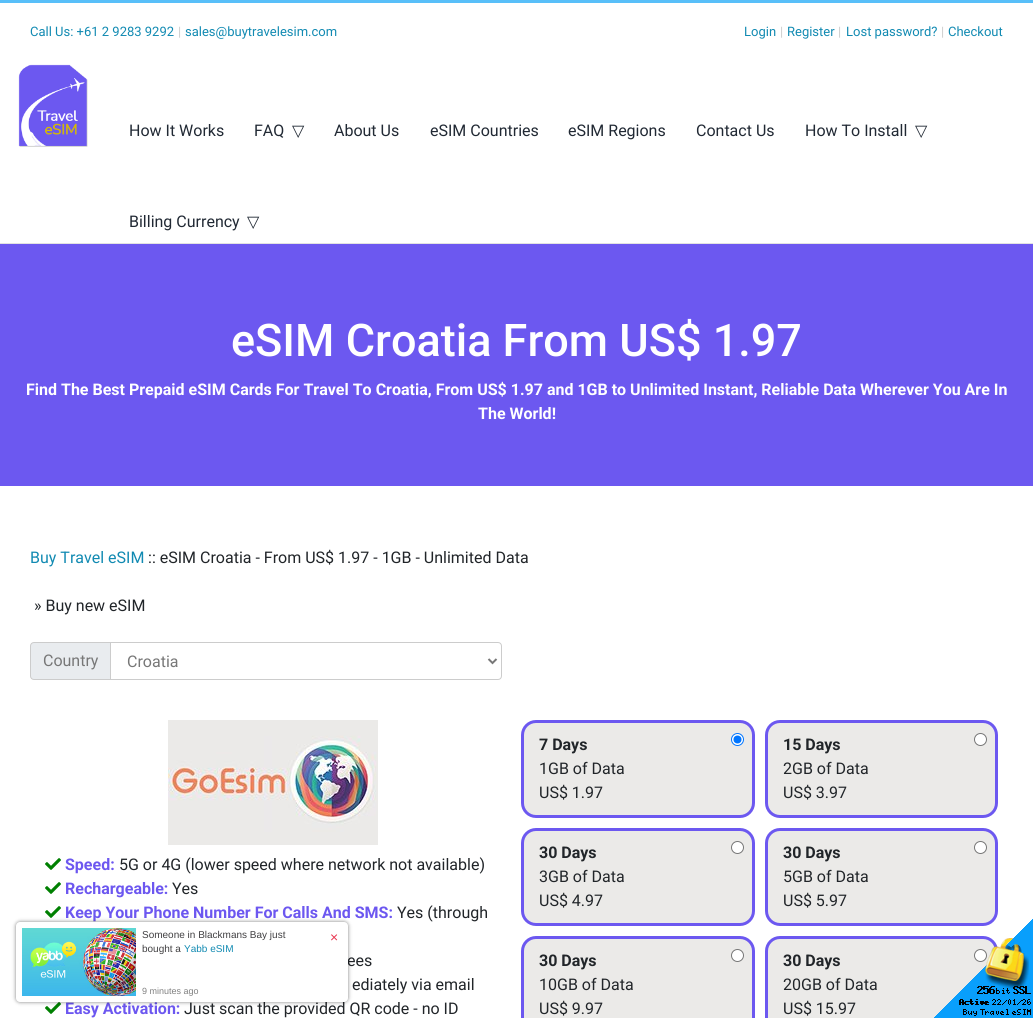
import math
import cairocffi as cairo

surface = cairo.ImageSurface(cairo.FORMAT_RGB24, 1033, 1018)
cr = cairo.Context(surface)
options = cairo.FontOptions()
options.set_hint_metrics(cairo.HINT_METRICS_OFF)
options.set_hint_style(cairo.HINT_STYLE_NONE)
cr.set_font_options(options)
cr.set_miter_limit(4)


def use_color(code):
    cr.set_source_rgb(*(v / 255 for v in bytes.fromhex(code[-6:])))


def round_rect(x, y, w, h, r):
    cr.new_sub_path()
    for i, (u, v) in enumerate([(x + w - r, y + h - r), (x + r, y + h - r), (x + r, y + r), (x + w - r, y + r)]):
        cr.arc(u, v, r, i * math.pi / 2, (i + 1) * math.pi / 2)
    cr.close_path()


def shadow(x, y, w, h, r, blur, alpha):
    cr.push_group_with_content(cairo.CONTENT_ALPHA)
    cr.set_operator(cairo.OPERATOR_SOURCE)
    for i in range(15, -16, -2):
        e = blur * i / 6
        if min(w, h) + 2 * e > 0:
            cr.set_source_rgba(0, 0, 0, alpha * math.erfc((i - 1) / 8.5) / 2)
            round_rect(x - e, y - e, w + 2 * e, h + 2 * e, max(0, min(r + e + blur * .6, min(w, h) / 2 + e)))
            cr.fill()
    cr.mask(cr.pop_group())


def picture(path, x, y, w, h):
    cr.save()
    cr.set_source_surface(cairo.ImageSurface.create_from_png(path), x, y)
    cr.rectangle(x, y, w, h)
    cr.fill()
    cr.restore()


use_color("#ffffff")
cr.paint()
use_color("#58bff9")
cr.rectangle(0, 0, 1033, 3)
cr.fill()
cr.select_font_face("Roboto")
cr.set_font_size(13)
use_color("#118ab2")
cr.move_to(30, 36)
cr.show_text("Call Us: +61 2 9283 9292")
use_color("#cccccc")
cr.move_to(178, 36)
cr.show_text("|")
use_color("#118ab2")
cr.move_to(185, 36)
cr.show_text("sales@buytravelesim.com")
cr.move_to(744, 36)
cr.show_text("Login")
use_color("#cccccc")
cr.move_to(780, 36)
cr.show_text("|")
use_color("#118ab2")
cr.move_to(787, 36)
cr.show_text("Register")
use_color("#cccccc")
cr.move_to(838, 36)
cr.show_text("|")
use_color("#118ab2")
cr.move_to(846, 36)
cr.show_text("Lost password?")
use_color("#cccccc")
cr.move_to(941, 36)
cr.show_text("|")
use_color("#118ab2")
cr.move_to(948, 36)
cr.show_text("Checkout")
use_color("#e2e2e2")
cr.rectangle(0, 243, 1033, 1)
cr.fill()
picture("img1.png", 18, 64, 70, 83)
cr.set_font_size(16)
use_color("#212934")
cr.move_to(129, 136)
cr.show_text("How It Works")
cr.move_to(254, 136)
cr.show_text("FAQ")
cr.select_font_face("DejaVu Sans")
cr.move_to(292, 136)
cr.show_text("▽")
cr.select_font_face("Roboto")
cr.move_to(334, 136)
cr.show_text("About Us")
cr.move_to(430, 136)
cr.show_text("eSIM Countries")
cr.move_to(568, 136)
cr.show_text("eSIM Regions")
cr.move_to(696, 136)
cr.show_text("Contact Us")
cr.move_to(805, 136)
cr.show_text("How To Install")
cr.select_font_face("DejaVu Sans")
cr.move_to(915, 136)
cr.show_text("▽")
cr.select_font_face("Roboto")
cr.move_to(129, 227)
cr.show_text("Billing Currency")
cr.select_font_face("DejaVu Sans")
cr.move_to(247, 227)
cr.show_text("▽")
use_color("#6c58f0")
cr.rectangle(0, 244, 1033, 242)
cr.fill()
cr.select_font_face("Roboto Medium")
cr.set_font_size(45)
use_color("#ffffff")
cr.move_to(231, 356)
cr.show_text("eSIM Croatia From US$ 1.97")
cr.select_font_face("Roboto", cairo.FONT_SLANT_NORMAL, cairo.FONT_WEIGHT_BOLD)
cr.set_font_size(16)
cr.move_to(26, 395)
cr.show_text("Find The Best Prepaid eSIM Cards For Travel To Croatia, From US$ 1.97 and 1GB to Unlimited Instant, Reliable Data Wherever You Are In")
cr.move_to(478, 419)
cr.show_text("The World!")
cr.select_font_face("Roboto")
use_color("#118ab2")
cr.move_to(30, 563)
cr.show_text("Buy Travel eSIM")
use_color("#212529")
cr.move_to(148, 563)
cr.show_text(":: eSIM Croatia - From US$ 1.97 - 1GB - Unlimited Data")
cr.move_to(34, 611)
cr.show_text("» Buy new eSIM")
use_color("#e9ecef")
cr.new_path()
cr.move_to(34, 642.5)
cr.line_to(110.5, 642.5)
cr.line_to(110.5, 679.5)
cr.line_to(34, 679.5)
cr.curve_to(32, 679.5, 30.5, 678, 30.5, 676)
cr.line_to(30.5, 646)
cr.curve_to(30.5, 644, 32, 642.5, 34, 642.5)
cr.close_path()
cr.fill_preserve()
use_color("#cccccc")
cr.set_line_width(1)
cr.stroke()
use_color("#777777")
cr.move_to(43, 666)
cr.show_text("Country")
cr.new_path()
cr.move_to(110.5, 642.5)
cr.line_to(498, 642.5)
cr.curve_to(500, 642.5, 501.5, 644, 501.5, 646)
cr.line_to(501.5, 676)
cr.curve_to(501.5, 678, 500, 679.5, 498, 679.5)
cr.line_to(110.5, 679.5)
cr.close_path()
use_color("#cccccc")
cr.stroke()
cr.new_path()
cr.move_to(488.5, 659)
cr.line_to(492.5, 663)
cr.line_to(496.5, 659)
use_color("#777777")
cr.set_line_width(2)
cr.stroke()
cr.move_to(127, 667)
cr.show_text("Croatia")
picture("img2.png", 168, 720, 210, 125)
picture("img3.png", 45, 858, 16, 12)
cr.select_font_face("Roboto", cairo.FONT_SLANT_NORMAL, cairo.FONT_WEIGHT_BOLD)
use_color("#6c57f0")
cr.move_to(65, 870)
cr.show_text("Speed:")
cr.select_font_face("Roboto")
use_color("#212529")
cr.move_to(119, 870)
cr.show_text("5G or 4G (lower speed where network not available)")
picture("img3.png", 45, 882, 16, 12)
cr.select_font_face("Roboto", cairo.FONT_SLANT_NORMAL, cairo.FONT_WEIGHT_BOLD)
use_color("#6c57f0")
cr.move_to(65, 894)
cr.show_text("Rechargeable:")
cr.select_font_face("Roboto")
use_color("#212529")
cr.move_to(172, 894)
cr.show_text("Yes")
picture("img3.png", 45, 906, 16, 12)
cr.select_font_face("Roboto", cairo.FONT_SLANT_NORMAL, cairo.FONT_WEIGHT_BOLD)
use_color("#6c57f0")
cr.move_to(65, 918)
cr.show_text("Keep Your Phone Number For Calls And SMS:")
cr.select_font_face("Roboto")
use_color("#212529")
cr.move_to(397, 918)
cr.show_text("Yes (through")
cr.move_to(347, 966)
cr.show_text("ees")
cr.move_to(352, 990)
cr.show_text("ediately via email")
picture("img3.png", 45, 1002, 16, 12)
cr.select_font_face("Roboto", cairo.FONT_SLANT_NORMAL, cairo.FONT_WEIGHT_BOLD)
use_color("#6c57f0")
cr.move_to(65, 1014)
cr.show_text("Easy Activation:")
cr.select_font_face("Roboto")
use_color("#212529")
cr.move_to(184, 1014)
cr.show_text("Just scan the provided QR code - no ID")
use_color("#ebeae8")
round_rect(522.5, 721.5, 231, 95, 13.5)
cr.fill_preserve()
use_color("#6c58f0")
cr.set_line_width(3)
cr.stroke()
cr.select_font_face("Roboto", cairo.FONT_SLANT_NORMAL, cairo.FONT_WEIGHT_BOLD)
use_color("#212529")
cr.move_to(539, 750)
cr.show_text("7 Days")
cr.select_font_face("Roboto")
cr.move_to(539, 774)
cr.show_text("1GB of Data")
cr.move_to(539, 798)
cr.show_text("US$ 1.97")
use_color("#ffffff")
cr.new_path()
cr.arc(737.5, 739.5, 6, 0, 2 * math.pi)
cr.fill_preserve()
use_color("#0075ff")
cr.set_line_width(1)
cr.stroke()
cr.arc(737.5, 739.5, 4, 0, 2 * math.pi)
cr.fill()
use_color("#ebeae8")
round_rect(766.5, 721.5, 230, 95, 13.5)
cr.fill_preserve()
use_color("#6c58f0")
cr.set_line_width(3)
cr.stroke()
cr.select_font_face("Roboto", cairo.FONT_SLANT_NORMAL, cairo.FONT_WEIGHT_BOLD)
use_color("#212529")
cr.move_to(783, 750)
cr.show_text("15 Days")
cr.select_font_face("Roboto")
cr.move_to(783, 774)
cr.show_text("2GB of Data")
cr.move_to(783, 798)
cr.show_text("US$ 3.97")
use_color("#ffffff")
cr.new_path()
cr.arc(980.5, 739.5, 6, 0, 2 * math.pi)
cr.fill_preserve()
use_color("#767676")
cr.set_line_width(1)
cr.stroke()
use_color("#ebeae8")
round_rect(522.5, 829.5, 231, 95, 13.5)
cr.fill_preserve()
use_color("#6c58f0")
cr.set_line_width(3)
cr.stroke()
cr.select_font_face("Roboto", cairo.FONT_SLANT_NORMAL, cairo.FONT_WEIGHT_BOLD)
use_color("#212529")
cr.move_to(539, 858)
cr.show_text("30 Days")
cr.select_font_face("Roboto")
cr.move_to(539, 882)
cr.show_text("3GB of Data")
cr.move_to(539, 906)
cr.show_text("US$ 4.97")
use_color("#ffffff")
cr.new_path()
cr.arc(737.5, 847.5, 6, 0, 2 * math.pi)
cr.fill_preserve()
use_color("#767676")
cr.set_line_width(1)
cr.stroke()
use_color("#ebeae8")
round_rect(766.5, 829.5, 230, 95, 13.5)
cr.fill_preserve()
use_color("#6c58f0")
cr.set_line_width(3)
cr.stroke()
cr.select_font_face("Roboto", cairo.FONT_SLANT_NORMAL, cairo.FONT_WEIGHT_BOLD)
use_color("#212529")
cr.move_to(783, 858)
cr.show_text("30 Days")
cr.select_font_face("Roboto")
cr.move_to(783, 882)
cr.show_text("5GB of Data")
cr.move_to(783, 906)
cr.show_text("US$ 5.97")
use_color("#ffffff")
cr.new_path()
cr.arc(980.5, 847.5, 6, 0, 2 * math.pi)
cr.fill_preserve()
use_color("#767676")
cr.set_line_width(1)
cr.stroke()
use_color("#ebeae8")
round_rect(522.5, 937.5, 231, 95, 13.5)
cr.fill_preserve()
use_color("#6c58f0")
cr.set_line_width(3)
cr.stroke()
cr.select_font_face("Roboto", cairo.FONT_SLANT_NORMAL, cairo.FONT_WEIGHT_BOLD)
use_color("#212529")
cr.move_to(539, 966)
cr.show_text("30 Days")
cr.select_font_face("Roboto")
cr.move_to(539, 990)
cr.show_text("10GB of Data")
cr.move_to(539, 1014)
cr.show_text("US$ 9.97")
use_color("#ffffff")
cr.new_path()
cr.arc(737.5, 955.5, 6, 0, 2 * math.pi)
cr.fill_preserve()
use_color("#767676")
cr.set_line_width(1)
cr.stroke()
use_color("#ebeae8")
round_rect(766.5, 937.5, 230, 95, 13.5)
cr.fill_preserve()
use_color("#6c58f0")
cr.set_line_width(3)
cr.stroke()
cr.select_font_face("Roboto", cairo.FONT_SLANT_NORMAL, cairo.FONT_WEIGHT_BOLD)
use_color("#212529")
cr.move_to(783, 966)
cr.show_text("30 Days")
cr.select_font_face("Roboto")
cr.move_to(783, 990)
cr.show_text("20GB of Data")
cr.move_to(783, 1014)
cr.show_text("US$ 15.97")
use_color("#ffffff")
cr.new_path()
cr.arc(980.5, 955.5, 6, 0, 2 * math.pi)
cr.fill_preserve()
use_color("#767676")
cr.set_line_width(1)
cr.stroke()
picture("img4.png", 934, 919, 99, 99)
use_color("#000000")
shadow(16, 922, 332, 80, 4, 2, 0.5)
use_color("#ffffff")
round_rect(16, 922, 332, 80, 4)
cr.fill()
picture("img5.png", 22, 928, 114, 68)
cr.select_font_face("Liberation Sans")
cr.set_font_size(10)
use_color("#414042")
cr.move_to(142, 938)
cr.show_text("Someone in Blackmans Bay just")
cr.move_to(142, 952)
cr.show_text("bought a")
use_color("#118ab2")
cr.move_to(184, 952)
cr.show_text("Yabb eSIM")
cr.set_font_size(14)
use_color("#e83650")
cr.move_to(330, 942)
cr.show_text("×")
cr.set_font_size(9)
use_color("#808080")
cr.move_to(142, 994)
cr.show_text("9 minutes ago")
surface.write_to_png("result.png")
